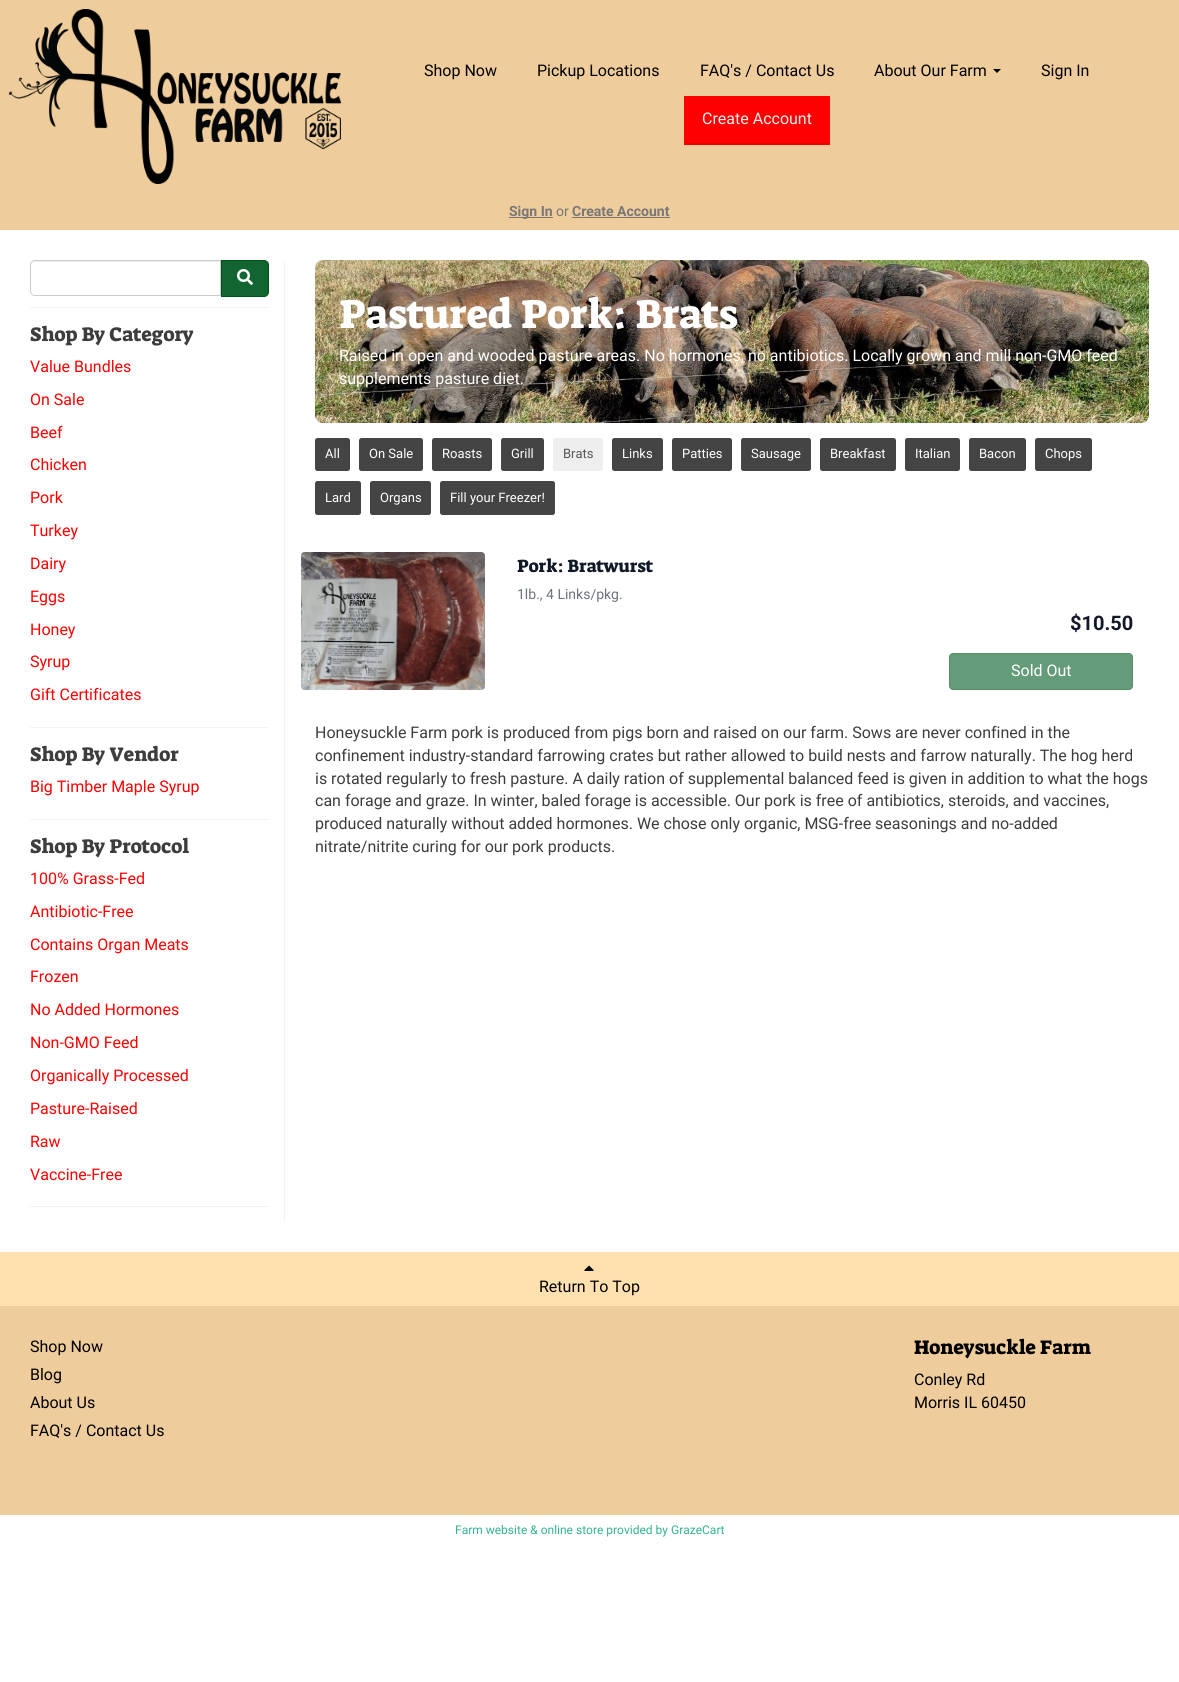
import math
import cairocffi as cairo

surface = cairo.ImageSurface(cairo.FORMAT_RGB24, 1179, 1682)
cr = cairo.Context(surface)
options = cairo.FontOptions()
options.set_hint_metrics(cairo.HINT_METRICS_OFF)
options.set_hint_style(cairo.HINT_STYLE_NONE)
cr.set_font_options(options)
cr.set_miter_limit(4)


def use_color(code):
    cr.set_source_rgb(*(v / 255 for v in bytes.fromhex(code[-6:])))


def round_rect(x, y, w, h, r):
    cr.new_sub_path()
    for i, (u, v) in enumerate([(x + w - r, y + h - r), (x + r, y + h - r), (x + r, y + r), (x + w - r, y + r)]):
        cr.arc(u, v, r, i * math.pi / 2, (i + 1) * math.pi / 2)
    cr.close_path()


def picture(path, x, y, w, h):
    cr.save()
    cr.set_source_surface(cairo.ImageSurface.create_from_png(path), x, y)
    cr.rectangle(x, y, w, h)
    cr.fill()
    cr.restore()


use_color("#ffffff")
cr.paint()
use_color("#eecc9b")
cr.rectangle(0, 0, 1179, 230)
cr.fill()
picture("img1.png", 9, 9, 332, 175)
cr.select_font_face("Roboto")
cr.set_font_size(16)
use_color("#000000")
cr.move_to(424, 76)
cr.show_text("Shop Now")
cr.move_to(537, 76)
cr.show_text("Pickup Locations")
cr.move_to(700, 76)
cr.show_text("FAQ's / Contact Us")
cr.move_to(874, 76)
cr.show_text("About Our Farm")
cr.new_path()
cr.move_to(993, 69)
cr.line_to(1001, 69)
cr.line_to(997, 73)
cr.close_path()
cr.fill()
cr.move_to(1041, 76)
cr.show_text("Sign In")
use_color("#ff0000")
cr.rectangle(684, 96, 146, 47)
cr.fill()
use_color("#eb0000")
cr.rectangle(684, 143, 146, 2)
cr.fill()
use_color("#eeeeee")
cr.move_to(702, 124)
cr.show_text("Create Account")
use_color("#777777")
cr.rectangle(509, 217, 44, 1)
cr.fill()
cr.select_font_face("Roboto", cairo.FONT_SLANT_NORMAL, cairo.FONT_WEIGHT_BOLD)
cr.set_font_size(14)
cr.move_to(509, 216)
cr.show_text("Sign In")
cr.select_font_face("Roboto")
cr.move_to(556, 216)
cr.show_text("or")
cr.select_font_face("Roboto", cairo.FONT_SLANT_NORMAL, cairo.FONT_WEIGHT_BOLD)
cr.move_to(572, 216)
cr.show_text("Create Account")
cr.rectangle(572, 217, 98, 1)
cr.fill()
use_color("#f3f3f3")
cr.rectangle(284, 260, 1, 962)
cr.fill()
cr.rectangle(30, 307, 239, 1)
cr.fill()
use_color("#ececec")
cr.new_path()
cr.move_to(35, 262)
cr.line_to(220, 262)
cr.line_to(220, 261)
cr.line_to(35, 261)
cr.curve_to(32, 261, 31, 263, 31, 266)
cr.curve_to(31, 264, 33, 262, 35, 262)
cr.close_path()
cr.fill()
cr.new_path()
cr.move_to(35, 260.5)
cr.line_to(220.5, 260.5)
cr.line_to(220.5, 295.5)
cr.line_to(35, 295.5)
cr.curve_to(32.5, 295.5, 30.5, 293.5, 30.5, 291)
cr.line_to(30.5, 265)
cr.curve_to(30.5, 262.5, 32.5, 260.5, 35, 260.5)
cr.close_path()
use_color("#cccccc")
cr.set_line_width(1)
cr.stroke()
use_color("#116530")
cr.new_path()
cr.move_to(221.5, 260.5)
cr.line_to(264, 260.5)
cr.curve_to(266.5, 260.5, 268.5, 262.5, 268.5, 265)
cr.line_to(268.5, 292)
cr.curve_to(268.5, 294.5, 266.5, 296.5, 264, 296.5)
cr.line_to(221.5, 296.5)
cr.close_path()
cr.fill_preserve()
use_color("#00511c")
cr.stroke()
picture("img2.png", 237, 269, 16, 16)
cr.select_font_face("Suez One")
cr.set_font_size(20)
use_color("#3d3d3d")
cr.move_to(30, 341)
cr.show_text("Shop By Category")
use_color("#f3f3f3")
cr.rectangle(30, 727, 239, 1)
cr.fill()
cr.select_font_face("Roboto")
cr.set_font_size(16)
use_color("#ff0000")
cr.move_to(30, 372)
cr.show_text("Value Bundles")
cr.move_to(30, 405)
cr.show_text("On Sale")
cr.move_to(30, 438)
cr.show_text("Beef")
cr.move_to(30, 470)
cr.show_text("Chicken")
cr.move_to(30, 503)
cr.show_text("Pork")
cr.move_to(30, 536)
cr.show_text("Turkey")
cr.move_to(30, 569)
cr.show_text("Dairy")
cr.move_to(30, 602)
cr.show_text("Eggs")
cr.move_to(30, 635)
cr.show_text("Honey")
cr.move_to(30, 667)
cr.show_text("Syrup")
cr.move_to(30, 700)
cr.show_text("Gift Certificates")
cr.select_font_face("Suez One")
cr.set_font_size(20)
use_color("#3d3d3d")
cr.move_to(30, 761)
cr.show_text("Shop By Vendor")
use_color("#f3f3f3")
cr.rectangle(30, 819, 239, 1)
cr.fill()
cr.select_font_face("Roboto")
cr.set_font_size(16)
use_color("#ff0000")
cr.move_to(30, 792)
cr.show_text("Big Timber Maple Syrup")
cr.select_font_face("Suez One")
cr.set_font_size(20)
use_color("#3d3d3d")
cr.move_to(30, 853)
cr.show_text("Shop By Protocol")
use_color("#f3f3f3")
cr.rectangle(30, 1206, 239, 1)
cr.fill()
cr.select_font_face("Roboto")
cr.set_font_size(16)
use_color("#ff0000")
cr.move_to(30, 884)
cr.show_text("100% Grass-Fed")
cr.move_to(30, 917)
cr.show_text("Antibiotic-Free")
cr.move_to(30, 950)
cr.show_text("Contains Organ Meats")
cr.move_to(30, 982)
cr.show_text("Frozen")
cr.move_to(30, 1015)
cr.show_text("No Added Hormones")
cr.move_to(30, 1048)
cr.show_text("Non-GMO Feed")
cr.move_to(30, 1081)
cr.show_text("Organically Processed")
cr.move_to(30, 1114)
cr.show_text("Pasture-Raised")
cr.move_to(30, 1147)
cr.show_text("Raw")
cr.move_to(30, 1180)
cr.show_text("Vaccine-Free")
picture("img3.png", 315, 260, 834, 163)
cr.select_font_face("Suez One")
cr.set_font_size(41)
use_color("#ffffff")
cr.move_to(339, 328)
cr.show_text("Pastured Pork: Brats")
cr.select_font_face("Roboto")
cr.set_font_size(16)
cr.move_to(339, 361)
cr.show_text("Raised in open and wooded pasture areas. No hormones, no antibiotics. Locally grown and mill non-GMO feed")
cr.move_to(339, 384)
cr.show_text("supplements pasture diet.")
use_color("#444444")
round_rect(315, 438, 35, 33, 2.5)
cr.fill()
cr.set_font_size(13)
use_color("#ffffff")
cr.move_to(325, 458)
cr.show_text("All")
use_color("#444444")
round_rect(359, 438, 64, 33, 2.5)
cr.fill()
use_color("#ffffff")
cr.move_to(369, 458)
cr.show_text("On Sale")
use_color("#444444")
round_rect(432, 438, 60, 33, 2.5)
cr.fill()
use_color("#ffffff")
cr.move_to(442, 458)
cr.show_text("Roasts")
use_color("#444444")
round_rect(501, 438, 43, 33, 2.5)
cr.fill()
use_color("#ffffff")
cr.move_to(511, 458)
cr.show_text("Grill")
use_color("#eeeeee")
round_rect(553, 438, 50, 33, 2.5)
cr.fill()
use_color("#555555")
cr.move_to(563, 458)
cr.show_text("Brats")
use_color("#444444")
round_rect(612, 438, 51, 33, 2.5)
cr.fill()
use_color("#ffffff")
cr.move_to(622, 458)
cr.show_text("Links")
use_color("#444444")
round_rect(672, 438, 60, 33, 2.5)
cr.fill()
use_color("#ffffff")
cr.move_to(682, 458)
cr.show_text("Patties")
use_color("#444444")
round_rect(741, 438, 70, 33, 2.5)
cr.fill()
use_color("#ffffff")
cr.move_to(751, 458)
cr.show_text("Sausage")
use_color("#444444")
round_rect(820, 438, 76, 33, 2.5)
cr.fill()
use_color("#ffffff")
cr.move_to(830, 458)
cr.show_text("Breakfast")
use_color("#444444")
round_rect(905, 438, 55, 33, 2.5)
cr.fill()
use_color("#ffffff")
cr.move_to(915, 458)
cr.show_text("Italian")
use_color("#444444")
round_rect(969, 438, 57, 33, 2.5)
cr.fill()
use_color("#ffffff")
cr.move_to(979, 458)
cr.show_text("Bacon")
use_color("#444444")
round_rect(1035, 438, 57, 33, 2.5)
cr.fill()
use_color("#ffffff")
cr.move_to(1045, 458)
cr.show_text("Chops")
use_color("#444444")
round_rect(315, 481, 46, 34, 2.5)
cr.fill()
use_color("#ffffff")
cr.move_to(325, 502)
cr.show_text("Lard")
use_color("#444444")
round_rect(370, 481, 61, 34, 2.5)
cr.fill()
use_color("#ffffff")
cr.move_to(380, 502)
cr.show_text("Organs")
use_color("#444444")
round_rect(440, 481, 115, 34, 2.5)
cr.fill()
use_color("#ffffff")
cr.move_to(450, 502)
cr.show_text("Fill your Freezer!")
picture("img4.png", 301, 552, 184, 138)
cr.select_font_face("Suez One")
cr.set_font_size(18)
use_color("#111827")
cr.move_to(517, 572)
cr.show_text("Pork: Bratwurst")
cr.select_font_face("Roboto")
cr.set_font_size(14)
use_color("#6b7280")
cr.move_to(517, 599)
cr.show_text("1lb., 4 Links/pkg.")
cr.select_font_face("Roboto", cairo.FONT_SLANT_NORMAL, cairo.FONT_WEIGHT_BOLD)
cr.set_font_size(20)
use_color("#111827")
cr.move_to(1070, 630)
cr.show_text("$10.50")
use_color("#649b78")
round_rect(949.5, 653.5, 183, 36, 3.5)
cr.fill_preserve()
use_color("#598e6b")
cr.stroke()
cr.select_font_face("Roboto")
cr.set_font_size(16)
use_color("#ffffff")
cr.move_to(1011, 676)
cr.show_text("Sold Out")
use_color("#3d3d3d")
cr.move_to(315, 738)
cr.show_text("Honeysuckle Farm pork is produced from pigs born and raised on our farm. Sows are never confined in the")
cr.move_to(315, 761)
cr.show_text("confinement industry-standard farrowing crates but rather allowed to build nests and farrow naturally. The hog herd")
cr.move_to(315, 784)
cr.show_text("is rotated regularly to fresh pasture. A daily ration of supplemental balanced feed is given in addition to what the hogs")
cr.move_to(315, 806)
cr.show_text("can forage and graze. In winter, baled forage is accessible. Our pork is free of antibiotics, steroids, and vaccines,")
cr.move_to(315, 829)
cr.show_text("produced naturally without added hormones. We chose only organic, MSG-free seasonings and no-added")
cr.move_to(315, 852)
cr.show_text("nitrate/nitrite curing for our pork products.")
use_color("#ffe0af")
cr.rectangle(0, 1252, 1179, 54)
cr.fill()
picture("img5.png", 584, 1265, 10, 6)
use_color("#000000")
cr.move_to(539, 1292)
cr.show_text("Return To Top")
use_color("#eecc9b")
cr.rectangle(0, 1306, 1179, 209)
cr.fill()
use_color("#000000")
cr.move_to(30, 1352)
cr.show_text("Shop Now")
cr.move_to(30, 1380)
cr.show_text("Blog")
cr.move_to(30, 1408)
cr.show_text("About Us")
cr.move_to(30, 1436)
cr.show_text("FAQ's / Contact Us")
cr.select_font_face("Suez One")
cr.set_font_size(20)
cr.move_to(914, 1354)
cr.show_text("Honeysuckle Farm")
cr.select_font_face("Roboto")
cr.set_font_size(16)
cr.move_to(914, 1385)
cr.show_text("Conley Rd")
cr.move_to(914, 1408)
cr.show_text("Morris IL 60450")
cr.set_font_size(12)
use_color("#34b393")
cr.move_to(455, 1534)
cr.show_text("Farm website & online store provided by GrazeCart")
surface.write_to_png("result.png")
